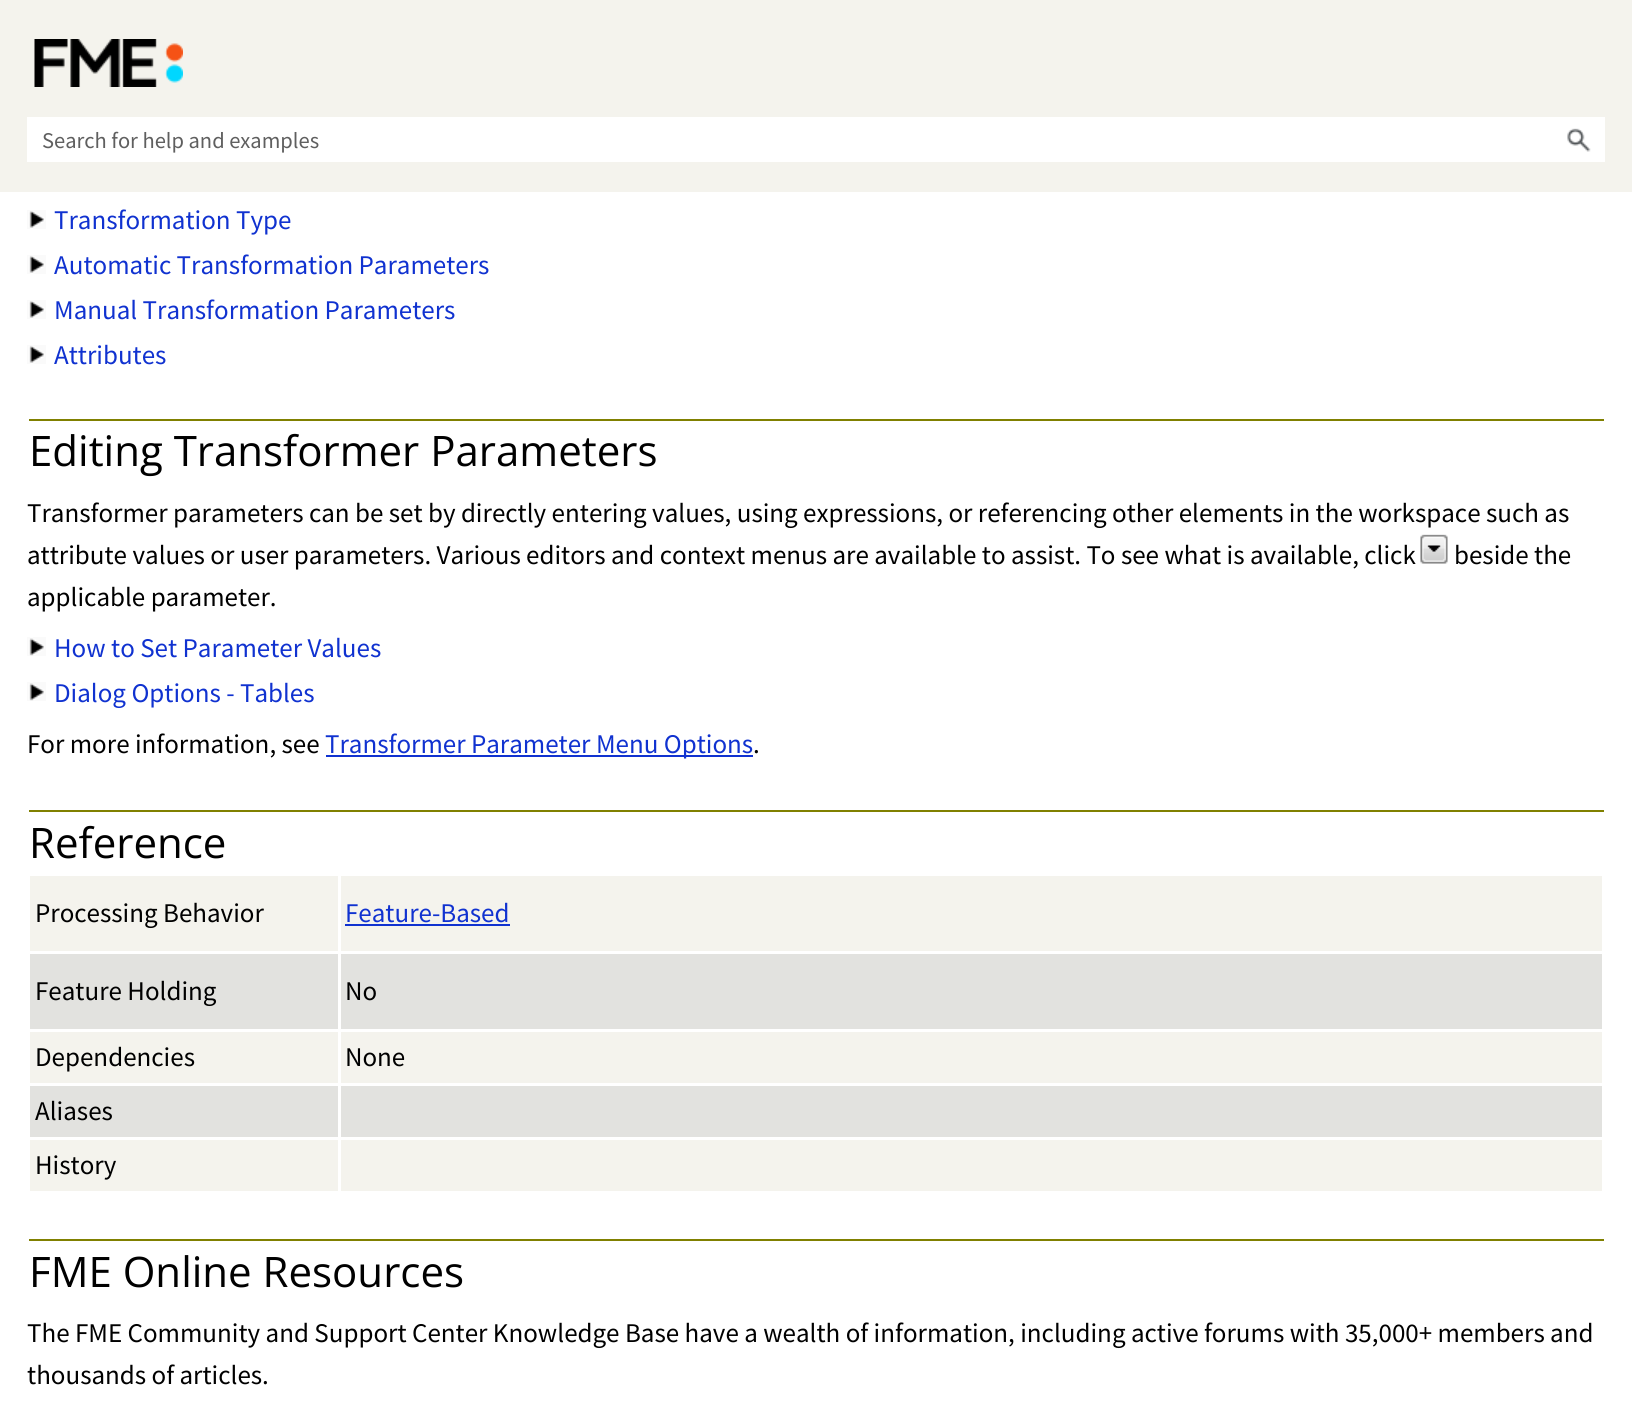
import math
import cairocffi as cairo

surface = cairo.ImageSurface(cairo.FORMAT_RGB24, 1632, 1418)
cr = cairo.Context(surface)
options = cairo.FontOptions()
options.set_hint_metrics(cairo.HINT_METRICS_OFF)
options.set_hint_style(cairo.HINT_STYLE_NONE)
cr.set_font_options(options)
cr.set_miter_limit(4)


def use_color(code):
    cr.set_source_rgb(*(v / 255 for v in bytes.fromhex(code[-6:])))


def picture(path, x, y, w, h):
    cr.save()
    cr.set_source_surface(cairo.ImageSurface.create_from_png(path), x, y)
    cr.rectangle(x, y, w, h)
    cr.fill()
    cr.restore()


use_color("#ffffff")
cr.paint()
use_color("#f4f3ed")
cr.rectangle(0, 0, 1632, 192)
cr.fill()
picture("img1.png", 34, 39, 149, 48)
use_color("#ffffff")
cr.rectangle(27, 117, 1578, 45)
cr.fill()
cr.select_font_face("Source Sans Pro")
cr.set_font_size(22.5)
use_color("#5f5f5f")
cr.move_to(42, 148)
cr.show_text("Search for help and examples")
picture("img2.png", 1567, 128, 24, 24)
picture("img3.png", 27, 210, 19, 19)
cr.set_font_size(27)
use_color("#1032d0")
cr.move_to(54, 229)
cr.show_text("Transformation Type")
picture("img3.png", 27, 255, 19, 19)
cr.move_to(54, 274)
cr.show_text("Automatic Transformation Parameters")
picture("img3.png", 27, 300, 19, 19)
cr.move_to(54, 319)
cr.show_text("Manual Transformation Parameters")
picture("img3.png", 27, 345, 19, 19)
cr.move_to(54, 364)
cr.show_text("Attributes")
use_color("#808000")
cr.rectangle(29, 419, 1575, 2)
cr.fill()
cr.select_font_face("Open Sans")
cr.set_font_size(42)
use_color("#000000")
cr.move_to(29, 466)
cr.show_text("Editing Transformer Parameters")
cr.select_font_face("Source Sans Pro")
cr.set_font_size(27)
cr.move_to(27, 522)
cr.show_text("Transformer parameters can be set by directly entering values, using expressions, or referencing other elements in the workspace such as")
cr.move_to(27, 564)
cr.show_text("attribute values or user parameters. Various editors and context menus are available to assist. To see what is available, click")
picture("img4.png", 1420, 534, 28, 30)
cr.move_to(1454, 564)
cr.show_text("beside the")
cr.move_to(27, 606)
cr.show_text("applicable parameter.")
picture("img5.png", 27, 637, 19, 19)
use_color("#1032d0")
cr.move_to(54, 657)
cr.show_text("How to Set Parameter Values")
picture("img5.png", 27, 682, 19, 19)
cr.move_to(54, 702)
cr.show_text("Dialog Options - Tables")
use_color("#000000")
cr.move_to(27, 753)
cr.show_text("For more information, see")
use_color("#1032d0")
cr.rectangle(326, 755, 427, 2)
cr.fill()
cr.move_to(325, 753)
cr.show_text("Transformer Parameter Menu Options")
use_color("#000000")
cr.move_to(753, 753)
cr.show_text(".")
use_color("#808000")
cr.rectangle(29, 810, 1575, 2)
cr.fill()
cr.select_font_face("Open Sans")
cr.set_font_size(42)
use_color("#000000")
cr.move_to(29, 858)
cr.show_text("Reference")
use_color("#f4f3ed")
cr.rectangle(28.5, 874.5, 1575, 318)
cr.fill_preserve()
use_color("#ffffff")
cr.set_line_width(3)
cr.stroke()
cr.rectangle(338, 876, 3, 315)
cr.fill()
cr.rectangle(30, 951, 1572, 3)
cr.fill()
cr.select_font_face("Source Sans Pro")
cr.set_font_size(27)
use_color("#000000")
cr.move_to(35, 922)
cr.show_text("Processing Behavior")
use_color("#1032d0")
cr.move_to(345, 922)
cr.show_text("Feature-Based")
cr.rectangle(345, 924, 165, 2)
cr.fill()
use_color("#e2e2df")
cr.rectangle(30, 954, 308, 75)
cr.fill()
use_color("#ffffff")
cr.rectangle(30, 1029, 1572, 3)
cr.fill()
use_color("#000000")
cr.move_to(35, 1000)
cr.show_text("Feature Holding")
use_color("#e2e2df")
cr.rectangle(341, 954, 1261, 75)
cr.fill()
use_color("#000000")
cr.move_to(345, 1000)
cr.show_text("No")
use_color("#ffffff")
cr.rectangle(30, 1083, 1572, 3)
cr.fill()
use_color("#000000")
cr.move_to(35, 1066)
cr.show_text("Dependencies")
cr.move_to(345, 1066)
cr.show_text("None")
use_color("#e2e2df")
cr.rectangle(30, 1086, 308, 51)
cr.fill()
use_color("#ffffff")
cr.rectangle(30, 1137, 1572, 3)
cr.fill()
use_color("#000000")
cr.move_to(35, 1120)
cr.show_text("Aliases")
use_color("#e2e2df")
cr.rectangle(341, 1086, 1261, 51)
cr.fill()
use_color("#000000")
cr.move_to(35, 1174)
cr.show_text("History")
use_color("#808000")
cr.rectangle(29, 1239, 1575, 2)
cr.fill()
cr.select_font_face("Open Sans")
cr.set_font_size(42)
use_color("#000000")
cr.move_to(29, 1287)
cr.show_text("FME Online Resources")
cr.select_font_face("Source Sans Pro")
cr.set_font_size(27)
cr.move_to(27, 1342)
cr.show_text("The FME Community and Support Center Knowledge Base have a wealth of information, including active forums with 35,000+ members and")
cr.move_to(27, 1384)
cr.show_text("thousands of articles.")
surface.write_to_png("result.png")
